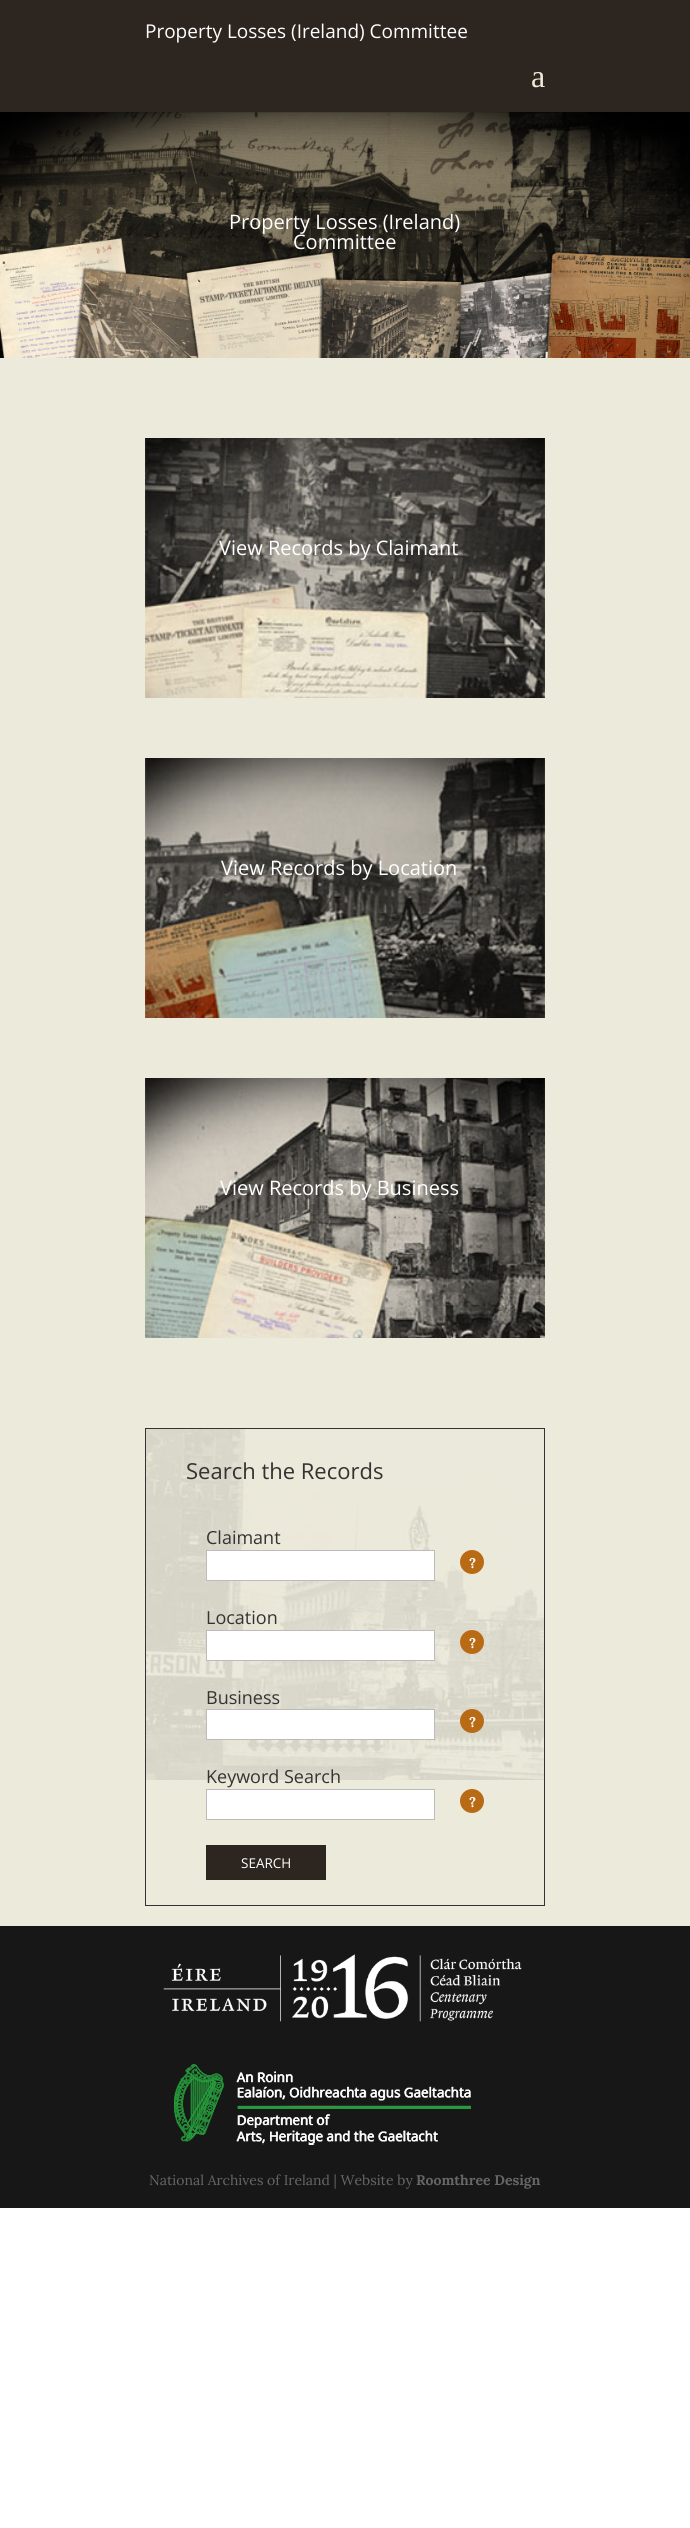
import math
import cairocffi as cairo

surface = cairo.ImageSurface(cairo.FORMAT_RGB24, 690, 2528)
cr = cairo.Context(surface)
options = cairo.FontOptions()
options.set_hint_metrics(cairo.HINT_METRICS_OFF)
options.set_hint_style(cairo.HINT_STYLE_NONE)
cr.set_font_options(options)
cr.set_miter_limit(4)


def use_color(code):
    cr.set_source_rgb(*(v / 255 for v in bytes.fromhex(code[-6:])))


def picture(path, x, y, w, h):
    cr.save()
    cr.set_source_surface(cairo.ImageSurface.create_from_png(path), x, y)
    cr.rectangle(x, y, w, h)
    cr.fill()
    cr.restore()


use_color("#ffffff")
cr.paint()
picture("img1.png", 0, 112, 690, 246)
cr.set_source_rgba(0, 0, 0, 0.1)
cr.rectangle(124, 112, 385, 1)
cr.fill()
use_color("#2d2520")
cr.rectangle(0, 0, 690, 112)
cr.fill()
cr.select_font_face("Open Sans")
cr.set_font_size(19)
use_color("#ffffff")
cr.move_to(145, 38)
cr.show_text("Property Losses (Ireland) Committee")
cr.select_font_face("Liberation Serif")
cr.set_font_size(32)
use_color("#ebeadb")
cr.move_to(531, 87)
cr.show_text("a")
cr.select_font_face("Open Sans")
cr.set_font_size(20)
use_color("#ffffff")
cr.move_to(229, 229)
cr.show_text("Property Losses (Ireland)")
cr.move_to(293, 249)
cr.show_text("Committee")
use_color("#ebeadb")
cr.rectangle(0, 358, 690, 1568)
cr.fill()
picture("img2.png", 145, 438, 400, 260)
use_color("#ffffff")
cr.move_to(219, 555)
cr.show_text("View Records by Claimant")
picture("img3.png", 145, 758, 400, 260)
cr.move_to(221, 875)
cr.show_text("View Records by Location")
picture("img4.png", 145, 1078, 400, 260)
cr.move_to(220, 1195)
cr.show_text("View Records by Business")
picture("img5.png", 146, 1429, 398, 351)
cr.rectangle(145.5, 1428.5, 399, 477)
use_color("#333333")
cr.set_line_width(1)
cr.stroke()
cr.set_font_size(22)
cr.move_to(186, 1479)
cr.show_text("Search the Records")
cr.set_font_size(18)
cr.move_to(206, 1544)
cr.show_text("Claimant")
use_color("#ffffff")
cr.rectangle(206.5, 1550.5, 228, 30)
cr.fill_preserve()
use_color("#bbbbbb")
cr.stroke()
use_color("#b96a15")
cr.arc(472, 1562, 12, 0, 2 * math.pi)
cr.fill()
cr.select_font_face("Lora", cairo.FONT_SLANT_NORMAL, cairo.FONT_WEIGHT_BOLD)
cr.set_font_size(14)
use_color("#ffffff")
cr.move_to(469, 1568)
cr.show_text("?")
cr.select_font_face("Open Sans")
cr.set_font_size(18)
use_color("#333333")
cr.move_to(206, 1624)
cr.show_text("Location")
use_color("#ffffff")
cr.rectangle(206.5, 1630.5, 228, 30)
cr.fill_preserve()
use_color("#bbbbbb")
cr.stroke()
use_color("#b96a15")
cr.arc(472, 1642, 12, 0, 2 * math.pi)
cr.fill()
cr.select_font_face("Lora", cairo.FONT_SLANT_NORMAL, cairo.FONT_WEIGHT_BOLD)
cr.set_font_size(14)
use_color("#ffffff")
cr.move_to(469, 1648)
cr.show_text("?")
cr.select_font_face("Open Sans")
cr.set_font_size(18)
use_color("#333333")
cr.move_to(206, 1704)
cr.show_text("Business")
use_color("#ffffff")
cr.rectangle(206.5, 1709.5, 228, 30)
cr.fill_preserve()
use_color("#bbbbbb")
cr.stroke()
use_color("#b96a15")
cr.arc(472, 1721, 12, 0, 2 * math.pi)
cr.fill()
cr.select_font_face("Lora", cairo.FONT_SLANT_NORMAL, cairo.FONT_WEIGHT_BOLD)
cr.set_font_size(14)
use_color("#ffffff")
cr.move_to(469, 1727)
cr.show_text("?")
cr.select_font_face("Open Sans")
cr.set_font_size(18)
use_color("#333333")
cr.move_to(206, 1783)
cr.show_text("Keyword Search")
use_color("#ffffff")
cr.rectangle(206.5, 1789.5, 228, 30)
cr.fill_preserve()
use_color("#bbbbbb")
cr.stroke()
use_color("#b96a15")
cr.arc(472, 1801, 12, 0, 2 * math.pi)
cr.fill()
cr.select_font_face("Lora", cairo.FONT_SLANT_NORMAL, cairo.FONT_WEIGHT_BOLD)
cr.set_font_size(14)
use_color("#ffffff")
cr.move_to(469, 1807)
cr.show_text("?")
use_color("#2d2520")
cr.rectangle(206, 1845, 120, 35)
cr.fill()
cr.select_font_face("Open Sans")
cr.set_font_size(13.5)
use_color("#ffffff")
cr.move_to(241, 1868)
cr.show_text("SEARCH")
use_color("#171717")
cr.rectangle(0, 1926, 690, 282)
cr.fill()
picture("img6.png", 163, 1954, 359, 68)
picture("img7.png", 174, 2064, 297, 81)
cr.select_font_face("Lora")
cr.set_font_size(14)
use_color("#666666")
cr.move_to(149, 2185)
cr.show_text("National Archives of Ireland | Website by")
cr.select_font_face("Lora", cairo.FONT_SLANT_NORMAL, cairo.FONT_WEIGHT_BOLD)
cr.move_to(416, 2185)
cr.show_text("Roomthree Design")
surface.write_to_png("result.png")
